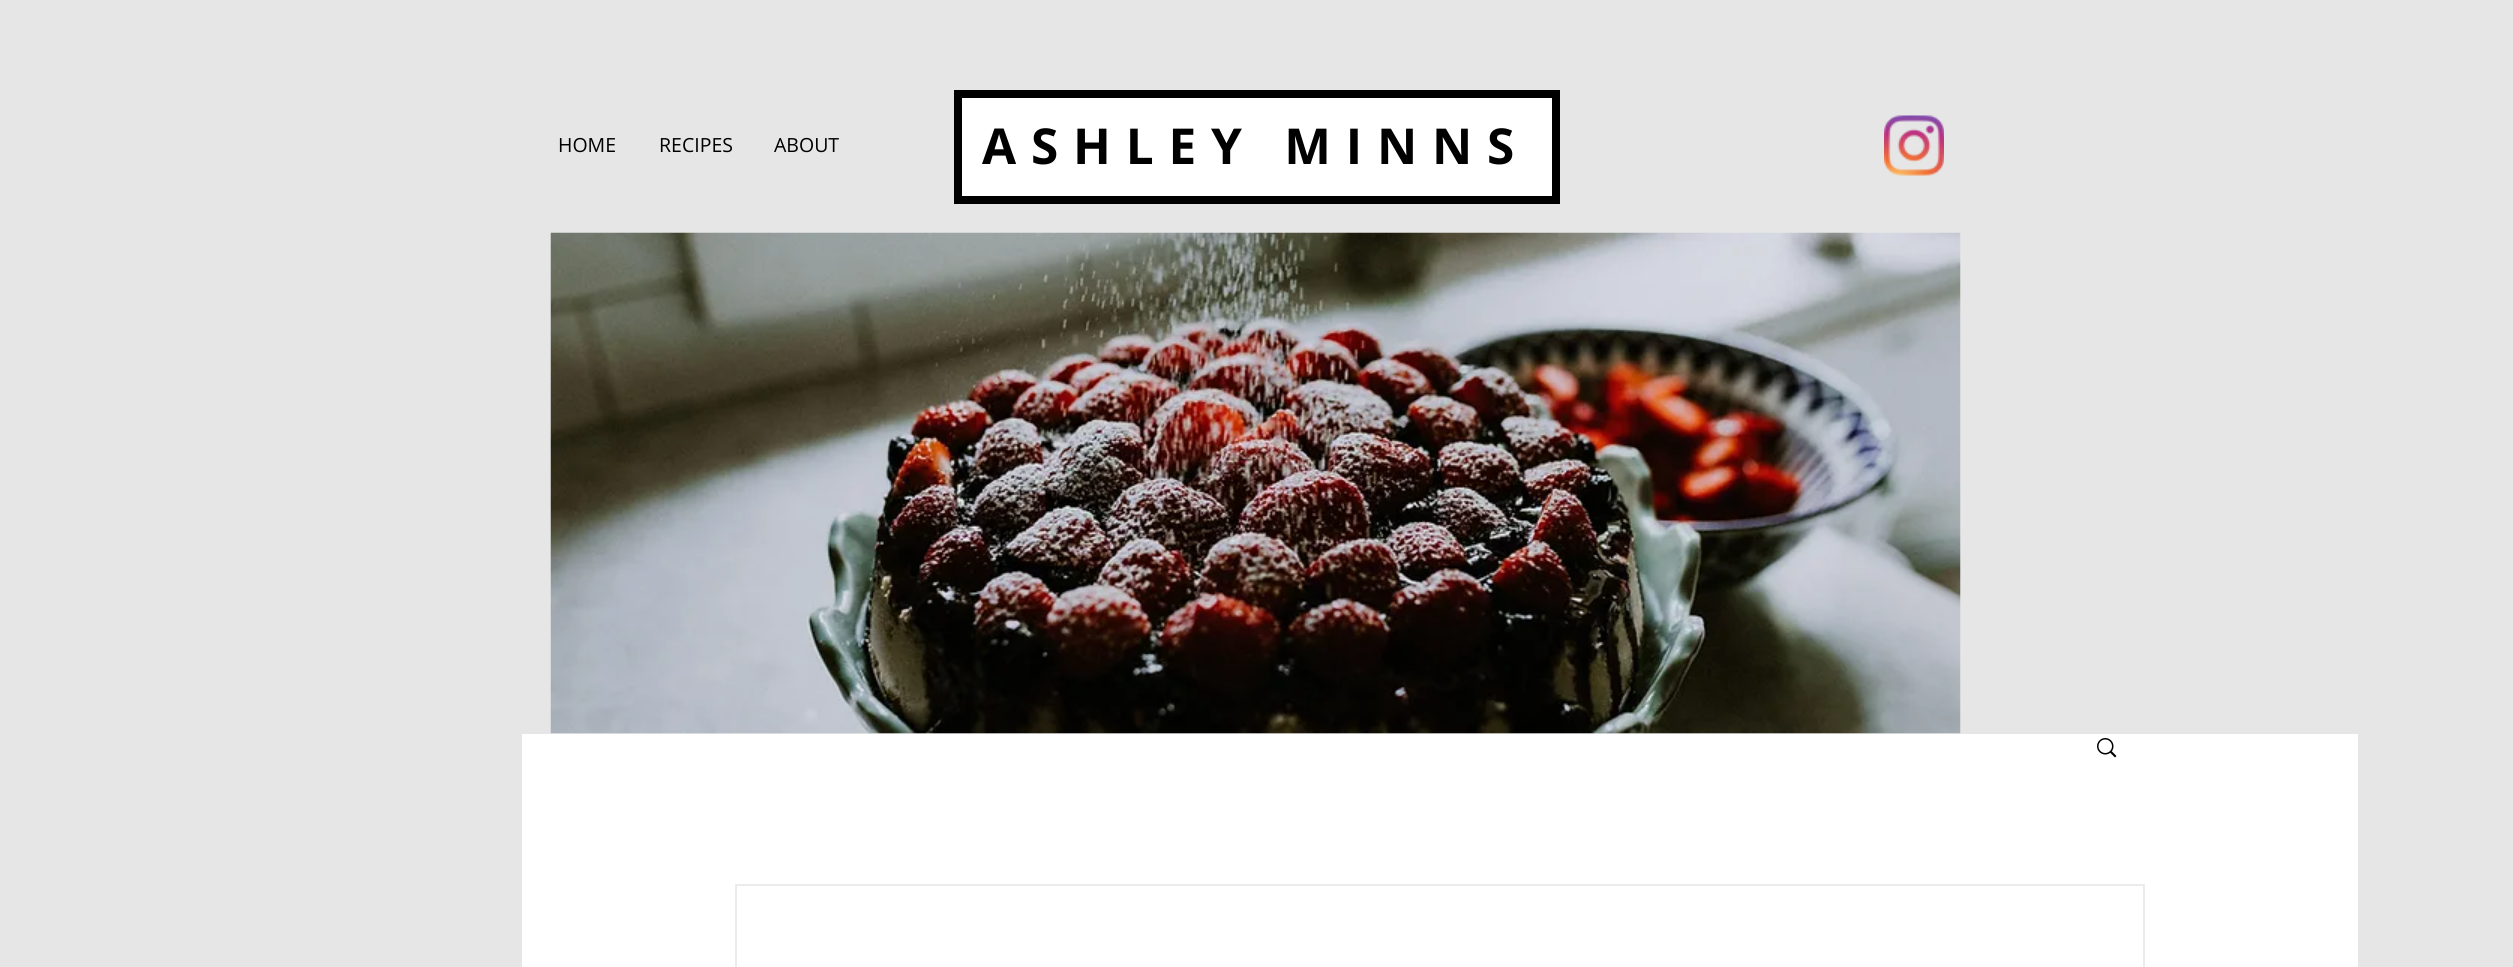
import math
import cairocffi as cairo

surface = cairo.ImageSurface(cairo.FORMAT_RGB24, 2513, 967)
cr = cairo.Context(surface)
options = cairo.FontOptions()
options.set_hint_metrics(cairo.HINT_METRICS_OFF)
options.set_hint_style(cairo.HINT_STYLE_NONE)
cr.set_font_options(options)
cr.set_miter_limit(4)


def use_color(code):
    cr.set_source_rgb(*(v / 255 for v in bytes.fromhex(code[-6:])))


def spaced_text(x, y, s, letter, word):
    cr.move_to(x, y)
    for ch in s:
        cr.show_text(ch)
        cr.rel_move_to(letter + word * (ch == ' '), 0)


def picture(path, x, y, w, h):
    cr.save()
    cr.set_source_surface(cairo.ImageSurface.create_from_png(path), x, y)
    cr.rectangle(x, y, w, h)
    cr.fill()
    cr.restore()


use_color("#e6e6e6")
cr.paint()
cr.select_font_face("Open Sans")
cr.set_font_size(19.5)
use_color("#000000")
cr.move_to(558, 152)
cr.show_text("HOME")
cr.move_to(659, 152)
cr.show_text("RECIPES")
cr.move_to(774, 152)
cr.show_text("ABOUT")
use_color("#ffffff")
cr.rectangle(958, 94, 598, 106)
cr.fill_preserve()
use_color("#000000")
cr.set_line_width(8)
cr.stroke()
cr.select_font_face("Open Sans", cairo.FONT_SLANT_NORMAL, cairo.FONT_WEIGHT_BOLD)
cr.set_font_size(49.5)
spaced_text(982, 164, "ASHLEY MINNS", 14.8, 0)
picture("img1.png", 1884, 115, 60, 61)
picture("img2.png", 550, 232, 1411, 502)
use_color("#ffffff")
cr.rectangle(522, 734, 1836, 233)
cr.fill()
picture("img3.png", 2097, 738, 20, 20)
cr.rectangle(736, 885, 1408, 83)
use_color("#ececec")
cr.set_line_width(2)
cr.stroke()
surface.write_to_png("result.png")
